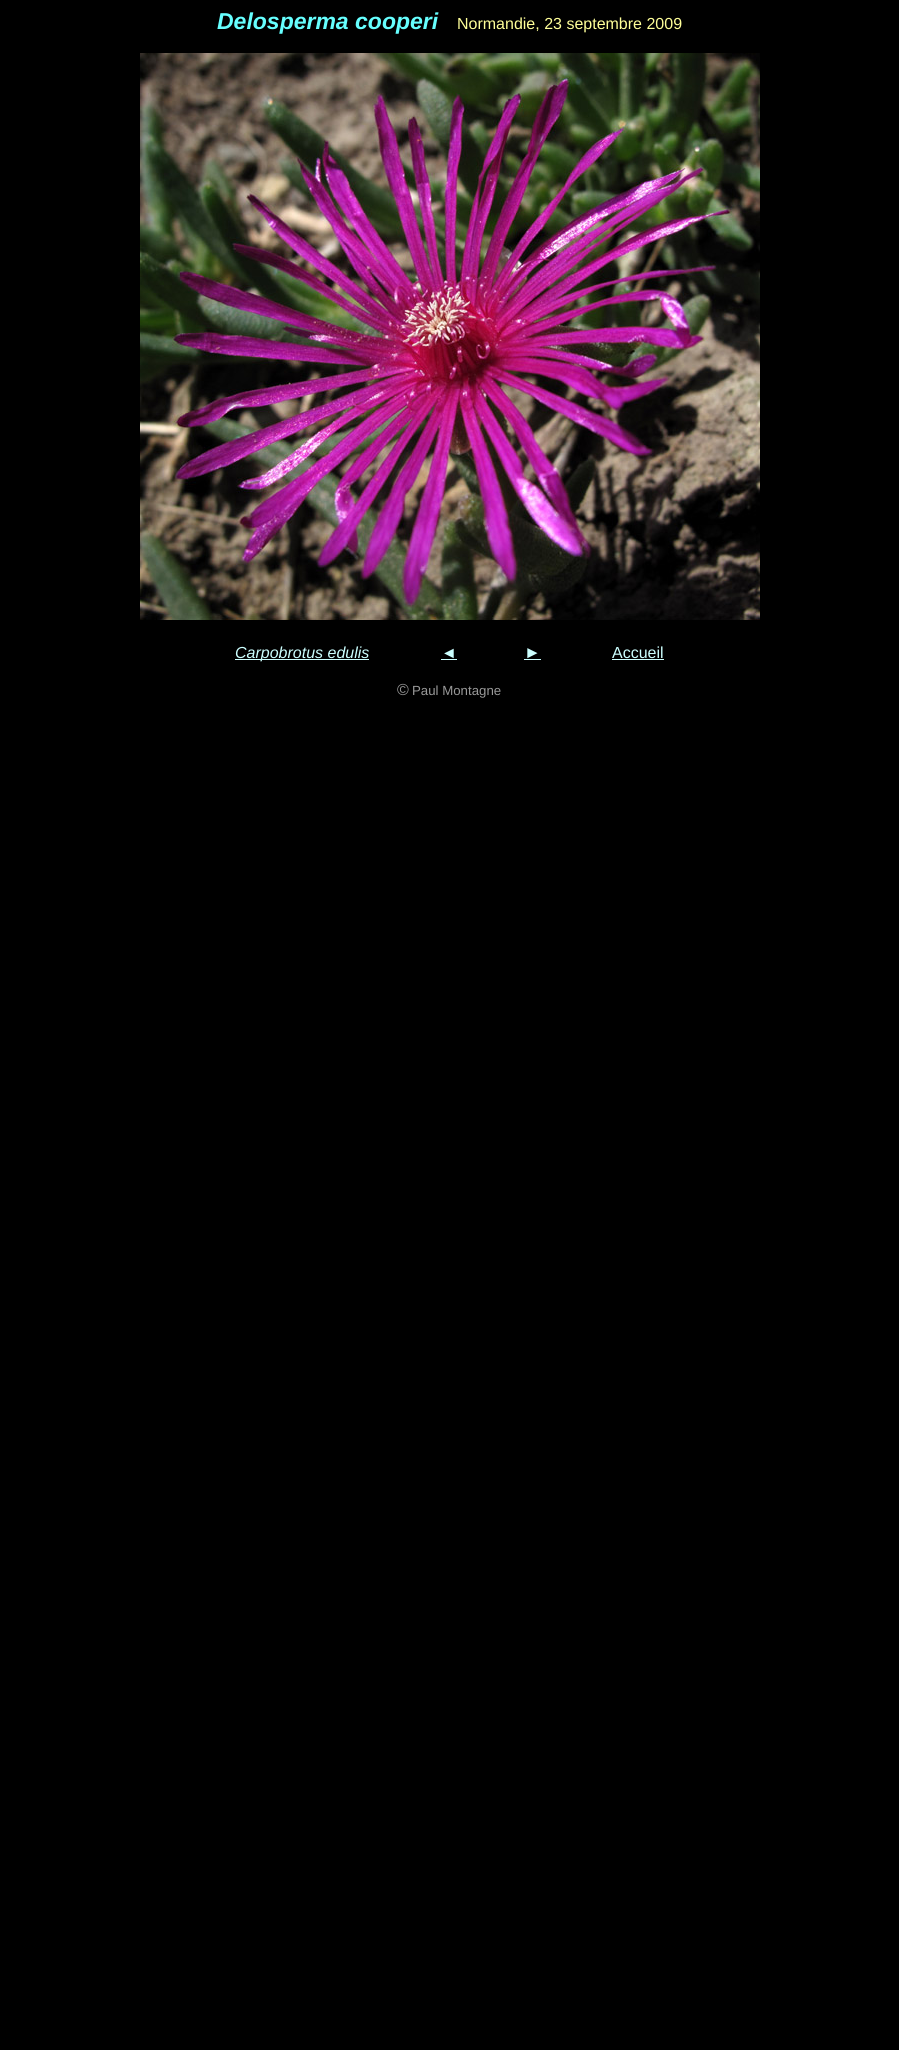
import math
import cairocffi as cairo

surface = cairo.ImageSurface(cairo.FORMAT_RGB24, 899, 2050)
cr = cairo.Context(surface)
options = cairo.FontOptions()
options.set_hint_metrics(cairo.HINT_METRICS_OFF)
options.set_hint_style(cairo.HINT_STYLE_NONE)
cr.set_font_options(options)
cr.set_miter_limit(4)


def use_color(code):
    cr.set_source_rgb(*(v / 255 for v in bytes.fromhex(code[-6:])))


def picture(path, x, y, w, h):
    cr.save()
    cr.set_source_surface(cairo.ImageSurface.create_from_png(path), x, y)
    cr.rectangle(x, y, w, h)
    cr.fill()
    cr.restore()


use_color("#000000")
cr.paint()
cr.select_font_face("Liberation Sans", cairo.FONT_SLANT_ITALIC, cairo.FONT_WEIGHT_BOLD)
cr.set_font_size(23)
use_color("#66ffff")
cr.move_to(217, 29)
cr.show_text("Delosperma cooperi")
cr.select_font_face("Liberation Sans")
cr.set_font_size(16)
use_color("#ffff99")
cr.move_to(457, 29)
cr.show_text("Normandie, 23 septembre 2009")
picture("img1.png", 140, 53, 620, 567)
use_color("#ccffff")
cr.rectangle(235, 659, 134, 1)
cr.fill()
cr.select_font_face("Liberation Sans", cairo.FONT_SLANT_ITALIC)
cr.move_to(235, 658)
cr.show_text("Carpobrotus edulis")
cr.select_font_face("Liberation Sans")
cr.move_to(441, 658)
cr.show_text("◄")
cr.rectangle(441, 659, 16, 1)
cr.fill()
cr.set_font_size(17)
cr.move_to(524, 658)
cr.show_text("►")
cr.rectangle(524, 659, 17, 1)
cr.fill()
cr.set_font_size(16)
cr.move_to(612, 658)
cr.show_text("Accueil")
cr.rectangle(612, 659, 52, 1)
cr.fill()
use_color("#999999")
cr.move_to(397, 695)
cr.show_text("©")
cr.set_font_size(13.25)
cr.move_to(412, 695)
cr.show_text("Paul Montagne")
surface.write_to_png("result.png")
